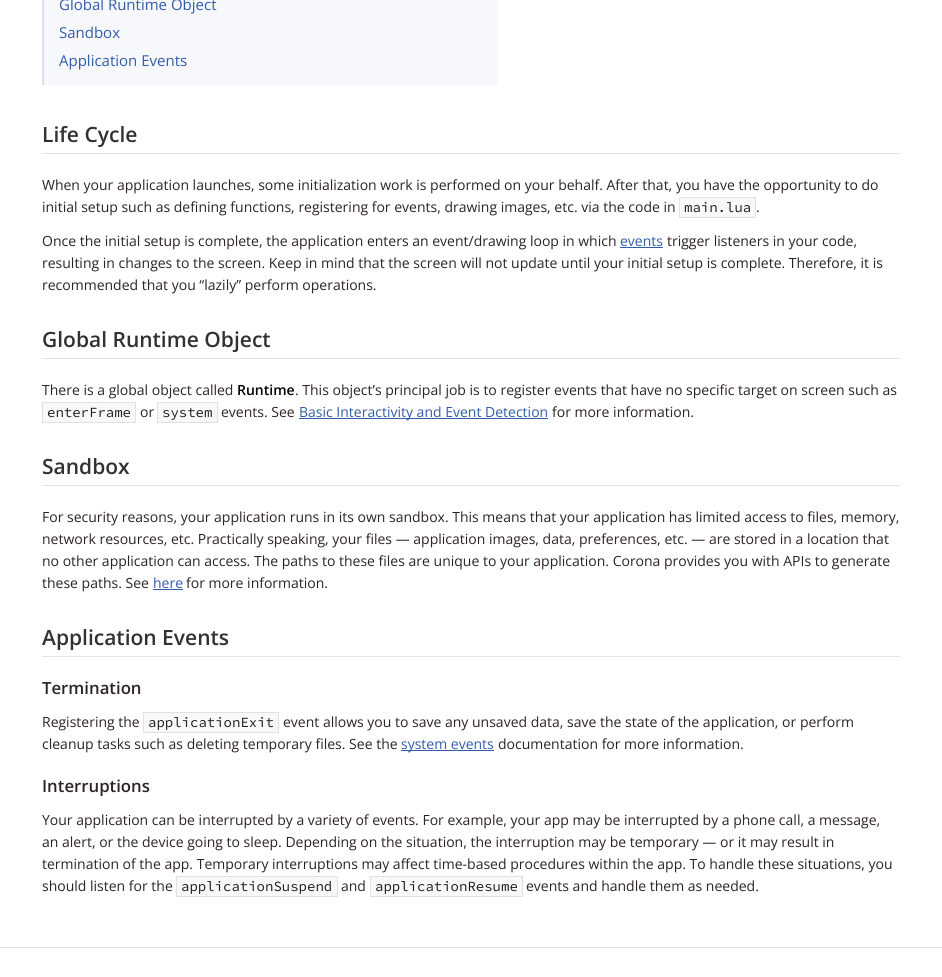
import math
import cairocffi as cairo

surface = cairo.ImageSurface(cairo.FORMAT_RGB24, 942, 977)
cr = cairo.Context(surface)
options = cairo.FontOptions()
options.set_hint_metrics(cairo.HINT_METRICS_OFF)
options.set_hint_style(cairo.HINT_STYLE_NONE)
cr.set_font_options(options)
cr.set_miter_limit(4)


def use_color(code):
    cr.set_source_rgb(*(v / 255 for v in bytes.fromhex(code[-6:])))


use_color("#ffffff")
cr.paint()
use_color("#f6f8fb")
cr.rectangle(44, 0, 454, 85)
cr.fill()
use_color("#dae2f0")
cr.rectangle(42, 0, 2, 85)
cr.fill()
cr.select_font_face("Open Sans")
cr.set_font_size(15)
use_color("#325baa")
cr.move_to(59, 10)
cr.show_text("Global Runtime Object")
cr.move_to(59, 38)
cr.show_text("Sandbox")
cr.move_to(59, 66)
cr.show_text("Application Events")
use_color("#e4e3e3")
cr.rectangle(42, 153, 858, 1)
cr.fill()
cr.select_font_face("Open Sans SemiBold")
cr.set_font_size(21)
use_color("#343030")
cr.move_to(42, 142)
cr.show_text("Life Cycle")
cr.select_font_face("Open Sans")
cr.set_font_size(14)
use_color("#2c2323")
cr.move_to(42, 190)
cr.show_text("When your application launches, some initialization work is performed on your behalf. After that, you have the opportunity to do")
cr.move_to(42, 212)
cr.show_text("initial setup such as defining functions, registering for events, drawing images, etc. via the code in")
use_color("#f8f8f8")
cr.rectangle(679.5, 197.5, 76, 20)
cr.fill_preserve()
use_color("#e1e1e1")
cr.set_line_width(1)
cr.stroke()
cr.select_font_face("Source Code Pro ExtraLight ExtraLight")
use_color("#231c1c")
cr.move_to(684, 212)
cr.show_text("main.lua")
cr.select_font_face("Open Sans")
use_color("#2c2323")
cr.move_to(756, 212)
cr.show_text(".")
cr.move_to(42, 246)
cr.show_text("Once the initial setup is complete, the application enters an event/drawing loop in which")
use_color("#325baa")
cr.move_to(620, 246)
cr.show_text("events")
cr.rectangle(620, 247, 43, 1)
cr.fill()
use_color("#2c2323")
cr.move_to(667, 246)
cr.show_text("trigger listeners in your code,")
cr.move_to(42, 268)
cr.show_text("resulting in changes to the screen. Keep in mind that the screen will not update until your initial setup is complete. Therefore, it is")
cr.move_to(42, 290)
cr.show_text("recommended that you “lazily” perform operations.")
use_color("#e4e3e3")
cr.rectangle(42, 358, 858, 1)
cr.fill()
cr.select_font_face("Open Sans SemiBold")
cr.set_font_size(21)
use_color("#343030")
cr.move_to(42, 347)
cr.show_text("Global Runtime Object")
cr.select_font_face("Open Sans")
cr.set_font_size(14)
use_color("#2c2323")
cr.move_to(42, 395)
cr.show_text("There is a global object called")
cr.select_font_face("Open Sans SemiBold")
use_color("#000000")
cr.move_to(237, 395)
cr.show_text("Runtime")
cr.select_font_face("Open Sans")
use_color("#2c2323")
cr.move_to(295, 395)
cr.show_text(". This object’s principal job is to register events that have no specific target on screen such as")
use_color("#f8f8f8")
cr.rectangle(42.5, 402.5, 93, 20)
cr.fill_preserve()
use_color("#e1e1e1")
cr.stroke()
cr.select_font_face("Source Code Pro ExtraLight ExtraLight")
use_color("#231c1c")
cr.move_to(47, 417)
cr.show_text("enterFrame")
cr.select_font_face("Open Sans")
use_color("#2c2323")
cr.move_to(140, 417)
cr.show_text("or")
use_color("#f8f8f8")
cr.rectangle(157.5, 402.5, 60, 20)
cr.fill_preserve()
use_color("#e1e1e1")
cr.stroke()
cr.select_font_face("Source Code Pro ExtraLight ExtraLight")
use_color("#231c1c")
cr.move_to(162, 417)
cr.show_text("system")
cr.select_font_face("Open Sans")
use_color("#2c2323")
cr.move_to(221, 417)
cr.show_text("events. See")
use_color("#325baa")
cr.rectangle(299, 418, 249, 1)
cr.fill()
cr.move_to(299, 417)
cr.show_text("Basic Interactivity and Event Detection")
use_color("#2c2323")
cr.move_to(552, 417)
cr.show_text("for more information.")
use_color("#e4e3e3")
cr.rectangle(42, 485, 858, 1)
cr.fill()
cr.select_font_face("Open Sans SemiBold")
cr.set_font_size(21)
use_color("#343030")
cr.move_to(42, 474)
cr.show_text("Sandbox")
cr.select_font_face("Open Sans")
cr.set_font_size(14)
use_color("#2c2323")
cr.move_to(42, 522)
cr.show_text("For security reasons, your application runs in its own sandbox. This means that your application has limited access to files, memory,")
cr.move_to(42, 544)
cr.show_text("network resources, etc. Practically speaking, your files — application images, data, preferences, etc. — are stored in a location that")
cr.move_to(42, 566)
cr.show_text("no other application can access. The paths to these files are unique to your application. Corona provides you with APIs to generate")
cr.move_to(42, 588)
cr.show_text("these paths. See")
use_color("#325baa")
cr.move_to(153, 588)
cr.show_text("here")
cr.rectangle(153, 589, 30, 1)
cr.fill()
use_color("#2c2323")
cr.move_to(186, 588)
cr.show_text("for more information.")
use_color("#e4e3e3")
cr.rectangle(42, 656, 858, 1)
cr.fill()
cr.select_font_face("Open Sans SemiBold")
cr.set_font_size(21)
use_color("#343030")
cr.move_to(42, 645)
cr.show_text("Application Events")
cr.set_font_size(16.75)
use_color("#2c2323")
cr.move_to(42, 694)
cr.show_text("Termination")
cr.select_font_face("Open Sans")
cr.set_font_size(14)
cr.move_to(42, 727)
cr.show_text("Registering the")
use_color("#f8f8f8")
cr.rectangle(143.5, 712.5, 135, 20)
cr.fill_preserve()
use_color("#e1e1e1")
cr.stroke()
cr.select_font_face("Source Code Pro ExtraLight ExtraLight")
use_color("#231c1c")
cr.move_to(148, 727)
cr.show_text("applicationExit")
cr.select_font_face("Open Sans")
use_color("#2c2323")
cr.move_to(283, 727)
cr.show_text("event allows you to save any unsaved data, save the state of the application, or perform")
cr.move_to(42, 749)
cr.show_text("cleanup tasks such as deleting temporary files. See the")
use_color("#325baa")
cr.rectangle(401, 750, 93, 1)
cr.fill()
cr.move_to(401, 749)
cr.show_text("system events")
use_color("#2c2323")
cr.move_to(498, 749)
cr.show_text("documentation for more information.")
cr.select_font_face("Open Sans SemiBold")
cr.set_font_size(16.75)
cr.move_to(42, 792)
cr.show_text("Interruptions")
cr.select_font_face("Open Sans")
cr.set_font_size(14)
cr.move_to(42, 825)
cr.show_text("Your application can be interrupted by a variety of events. For example, your app may be interrupted by a phone call, a message,")
cr.move_to(42, 847)
cr.show_text("an alert, or the device going to sleep. Depending on the situation, the interruption may be temporary — or it may result in")
cr.move_to(42, 869)
cr.show_text("termination of the app. Temporary interruptions may affect time-based procedures within the app. To handle these situations, you")
cr.move_to(42, 891)
cr.show_text("should listen for the")
use_color("#f8f8f8")
cr.rectangle(176.5, 876.5, 161, 20)
cr.fill_preserve()
use_color("#e1e1e1")
cr.stroke()
cr.select_font_face("Source Code Pro ExtraLight ExtraLight")
use_color("#231c1c")
cr.move_to(181, 891)
cr.show_text("applicationSuspend")
cr.select_font_face("Open Sans")
use_color("#2c2323")
cr.move_to(341, 891)
cr.show_text("and")
use_color("#f8f8f8")
cr.rectangle(370.5, 876.5, 152, 20)
cr.fill_preserve()
use_color("#e1e1e1")
cr.stroke()
cr.select_font_face("Source Code Pro ExtraLight ExtraLight")
use_color("#231c1c")
cr.move_to(375, 891)
cr.show_text("applicationResume")
cr.select_font_face("Open Sans")
use_color("#2c2323")
cr.move_to(526, 891)
cr.show_text("events and handle them as needed.")
use_color("#e4e3e3")
cr.rectangle(0, 947, 942, 1)
cr.fill()
surface.write_to_png("result.png")
